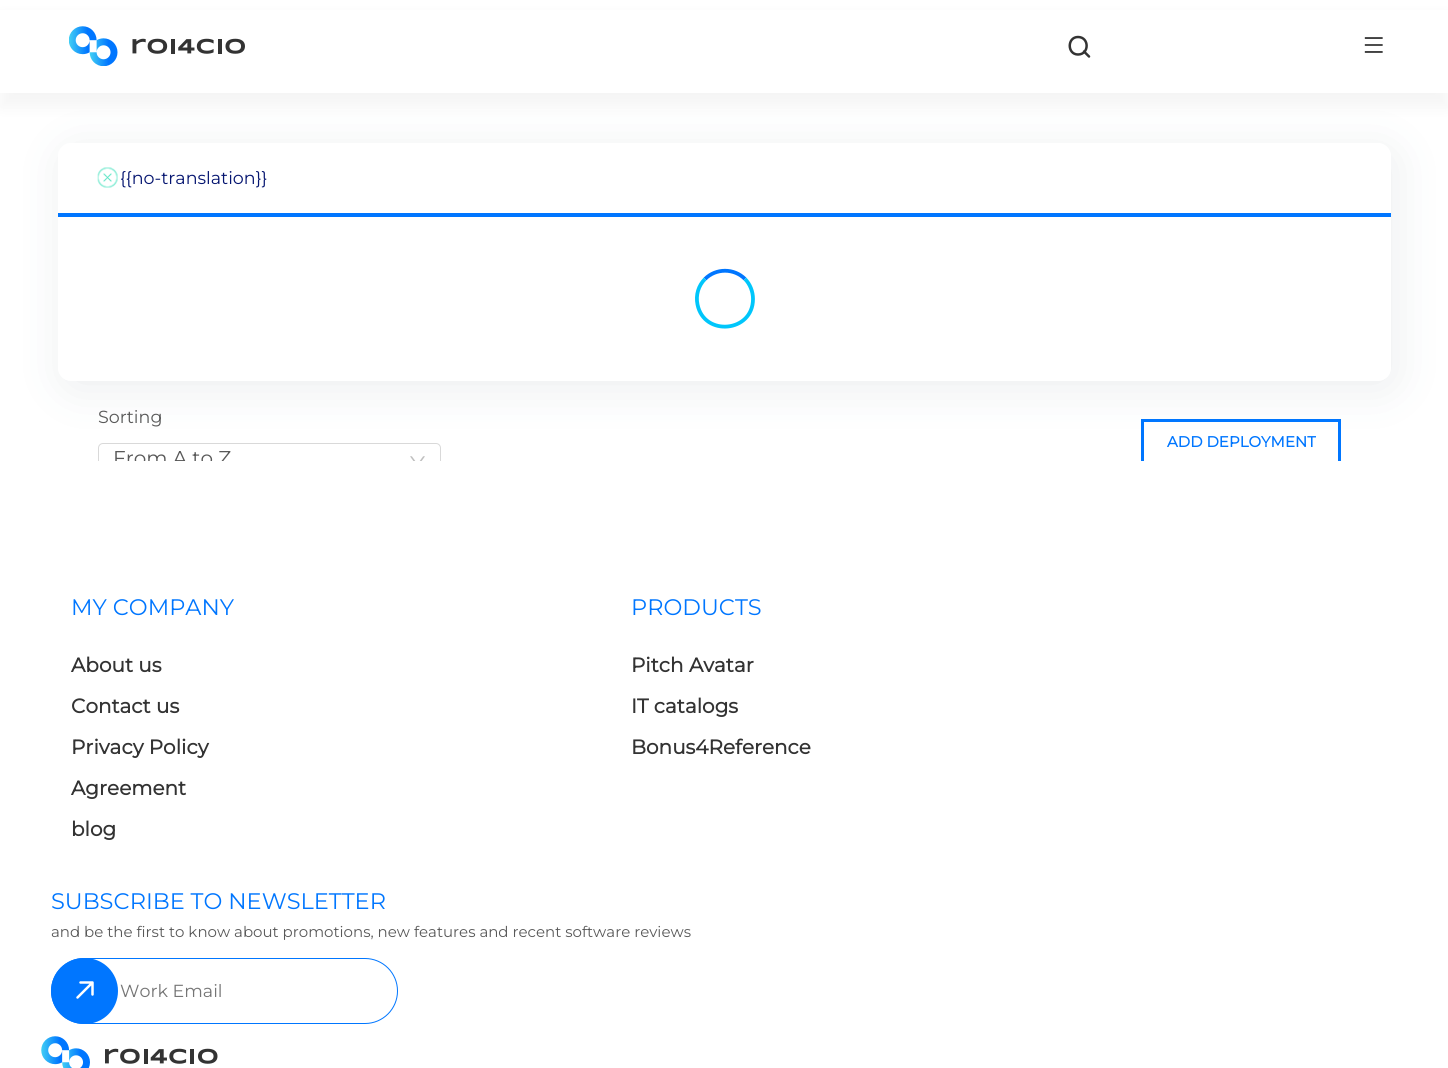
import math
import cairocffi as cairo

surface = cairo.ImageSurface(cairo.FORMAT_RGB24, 1448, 1068)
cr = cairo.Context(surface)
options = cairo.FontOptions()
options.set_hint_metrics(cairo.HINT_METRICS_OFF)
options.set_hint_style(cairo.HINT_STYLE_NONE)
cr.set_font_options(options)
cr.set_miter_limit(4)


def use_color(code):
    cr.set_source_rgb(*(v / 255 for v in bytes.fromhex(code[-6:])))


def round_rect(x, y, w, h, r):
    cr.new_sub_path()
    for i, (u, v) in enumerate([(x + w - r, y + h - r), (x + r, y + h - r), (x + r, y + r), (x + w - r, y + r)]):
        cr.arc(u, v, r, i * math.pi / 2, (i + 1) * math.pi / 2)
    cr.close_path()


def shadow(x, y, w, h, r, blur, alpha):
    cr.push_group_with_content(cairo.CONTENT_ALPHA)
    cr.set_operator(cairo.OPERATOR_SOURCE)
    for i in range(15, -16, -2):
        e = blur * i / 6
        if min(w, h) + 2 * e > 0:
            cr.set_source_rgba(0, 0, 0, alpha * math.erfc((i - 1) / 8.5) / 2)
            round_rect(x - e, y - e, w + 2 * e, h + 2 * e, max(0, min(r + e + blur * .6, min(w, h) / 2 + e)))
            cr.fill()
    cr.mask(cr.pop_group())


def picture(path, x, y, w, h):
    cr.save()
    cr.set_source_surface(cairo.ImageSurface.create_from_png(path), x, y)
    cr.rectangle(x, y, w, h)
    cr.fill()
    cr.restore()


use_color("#ffffff")
cr.paint()
use_color("#000000")
shadow(0, 15, 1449, 93, 0, 7.5, 0.04)
cr.save()
cr.set_fill_rule(cairo.FILL_RULE_EVEN_ODD)
cr.new_path()
cr.move_to(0, 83)
cr.line_to(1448, 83)
cr.line_to(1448, 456)
cr.line_to(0, 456)
cr.close_path()
cr.move_to(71, 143)
cr.line_to(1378, 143)
cr.curve_to(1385, 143, 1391, 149, 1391, 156)
cr.line_to(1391, 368)
cr.curve_to(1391, 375, 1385, 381, 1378, 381)
cr.line_to(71, 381)
cr.curve_to(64, 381, 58, 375, 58, 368)
cr.line_to(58, 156)
cr.curve_to(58, 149, 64, 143, 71, 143)
cr.close_path()
cr.clip()
use_color("#3f5060")
shadow(63, 150, 1333, 239, 13, 22, 0.1)
cr.restore()
use_color("#ffffff")
cr.rectangle(0, 10, 1448, 83)
cr.fill()
picture("img1.png", 69, 26, 176, 40)
cr.new_path()
cr.move_to(1078, 54.5)
cr.curve_to(1089.5, 54.5, 1089.5, 37, 1078, 37)
cr.curve_to(1067, 37, 1067, 54.5, 1078, 54.5)
cr.close_path()
cr.move_to(1084, 51.5)
cr.line_to(1089, 56.5)
use_color("#333333")
cr.set_line_width(2.5)
cr.set_line_cap(cairo.LINE_CAP_ROUND)
cr.set_line_join(cairo.LINE_JOIN_ROUND)
cr.stroke()
picture("img2.png", 1364, 37, 19, 16)
use_color("#0076ff")
cr.rectangle(58, 213, 1333, 4)
cr.fill()
picture("img3.png", 97, 167, 21, 21)
cr.select_font_face("Montserrat")
cr.set_font_size(17.5)
use_color("#051570")
cr.move_to(120, 184)
cr.show_text("{{no-translation}}")
cr.new_path()
cr.move_to(705, 279)
cr.curve_to(716, 268, 734, 268, 745, 279)
use_color("#0076ff")
cr.set_line_width(3.8)
cr.set_line_cap(cairo.LINE_CAP_BUTT)
cr.set_line_join(cairo.LINE_JOIN_MITER)
cr.stroke()
cr.new_path()
cr.move_to(745, 279)
cr.curve_to(750, 284, 753, 291.5, 753, 299)
cr.curve_to(753, 332.5, 704, 337, 697.5, 304.5)
cr.curve_to(695.5, 295, 698.5, 285.5, 705, 279)
use_color("#00c6fb")
cr.stroke()
use_color("#595959")
cr.move_to(98, 423)
cr.show_text("Sorting")
round_rect(98.5, 443.5, 342, 34, 4.5)
use_color("#d9d9d9")
cr.set_line_width(1)
cr.stroke()
cr.set_font_size(20)
use_color("#595959")
cr.move_to(113, 465)
cr.show_text("From A to Z")
picture("img4.png", 410, 456, 15, 5)
cr.rectangle(1142.5, 420.5, 197, 42)
use_color("#0076ff")
cr.set_line_width(3)
cr.stroke()
cr.select_font_face("Montserrat", cairo.FONT_SLANT_NORMAL, cairo.FONT_WEIGHT_BOLD)
cr.set_font_size(15)
cr.move_to(1167, 447)
cr.show_text("ADD DEPLOYMENT")
use_color("#ffffff")
cr.rectangle(98, 461, 1243, 17)
cr.fill()
cr.select_font_face("Montserrat")
cr.set_font_size(22.5)
use_color("#0076ff")
cr.move_to(71, 615)
cr.show_text("MY COMPANY")
cr.select_font_face("Montserrat", cairo.FONT_SLANT_NORMAL, cairo.FONT_WEIGHT_BOLD)
cr.set_font_size(20)
use_color("#333333")
cr.move_to(71, 672)
cr.show_text("About us")
cr.move_to(71, 713)
cr.show_text("Contact us")
cr.move_to(71, 754)
cr.show_text("Privacy Policy")
cr.move_to(71, 795)
cr.show_text("Agreement")
cr.move_to(71, 836)
cr.show_text("blog")
cr.select_font_face("Montserrat")
cr.set_font_size(22.5)
use_color("#0076ff")
cr.move_to(631, 615)
cr.show_text("PRODUCTS")
cr.select_font_face("Montserrat", cairo.FONT_SLANT_NORMAL, cairo.FONT_WEIGHT_BOLD)
cr.set_font_size(20)
use_color("#333333")
cr.move_to(631, 672)
cr.show_text("Pitch Avatar")
cr.move_to(631, 713)
cr.show_text("IT catalogs")
cr.move_to(631, 754)
cr.show_text("Bonus4Reference")
cr.select_font_face("Montserrat")
cr.set_font_size(22.5)
use_color("#0076ff")
cr.move_to(51, 909)
cr.show_text("SUBSCRIBE TO NEWSLETTER")
cr.set_font_size(15)
use_color("#595959")
cr.move_to(51, 937)
cr.show_text("and be the first to know about promotions, new features and recent software reviews")
round_rect(51.5, 958.5, 346, 65, 32.5)
use_color("#0076ff")
cr.set_line_width(1)
cr.stroke()
round_rect(51, 958, 67, 66, 33)
cr.fill()
cr.new_path()
cr.move_to(77.5, 997.5)
cr.line_to(92.5, 982.5)
cr.move_to(80.5, 982.5)
cr.line_to(92.5, 982.5)
cr.line_to(92.5, 994.5)
use_color("#ffffff")
cr.set_line_width(2.5)
cr.set_line_cap(cairo.LINE_CAP_ROUND)
cr.set_line_join(cairo.LINE_JOIN_ROUND)
cr.stroke()
cr.set_font_size(17.5)
use_color("#757575")
cr.move_to(120, 997)
cr.show_text("Work Email")
picture("img5.png", 41, 1036, 177, 32)
surface.write_to_png("result.png")
